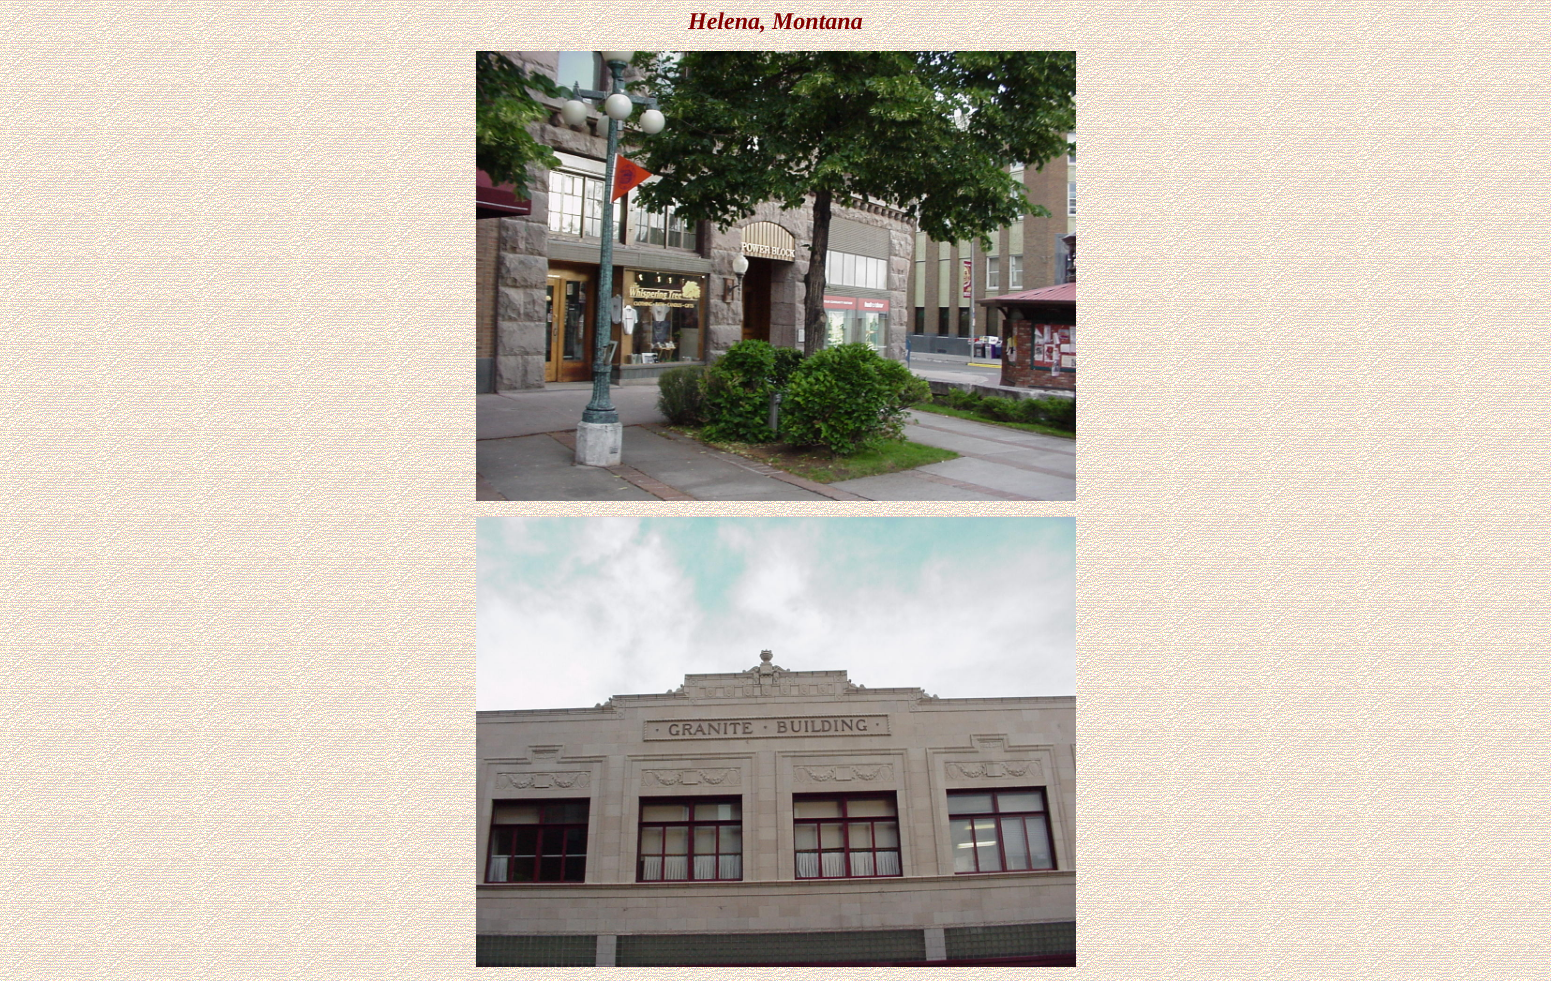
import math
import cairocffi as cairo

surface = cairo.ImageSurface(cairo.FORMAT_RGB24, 1551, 981)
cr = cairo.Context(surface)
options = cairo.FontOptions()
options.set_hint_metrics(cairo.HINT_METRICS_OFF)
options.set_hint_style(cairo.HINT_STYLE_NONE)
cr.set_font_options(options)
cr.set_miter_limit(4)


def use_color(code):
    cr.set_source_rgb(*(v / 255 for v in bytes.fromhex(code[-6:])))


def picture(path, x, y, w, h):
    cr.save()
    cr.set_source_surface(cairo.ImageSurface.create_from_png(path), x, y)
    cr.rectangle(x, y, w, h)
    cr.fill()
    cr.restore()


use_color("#ffffff")
cr.paint()
picture("img1.png", 0, 0, 1551, 981)
cr.select_font_face("Liberation Serif", cairo.FONT_SLANT_ITALIC, cairo.FONT_WEIGHT_BOLD)
cr.set_font_size(24)
use_color("#800000")
cr.move_to(688, 29)
cr.show_text("Helena, Montana")
picture("img2.png", 476, 51, 600, 450)
picture("img3.png", 476, 517, 600, 450)
surface.write_to_png("result.png")
